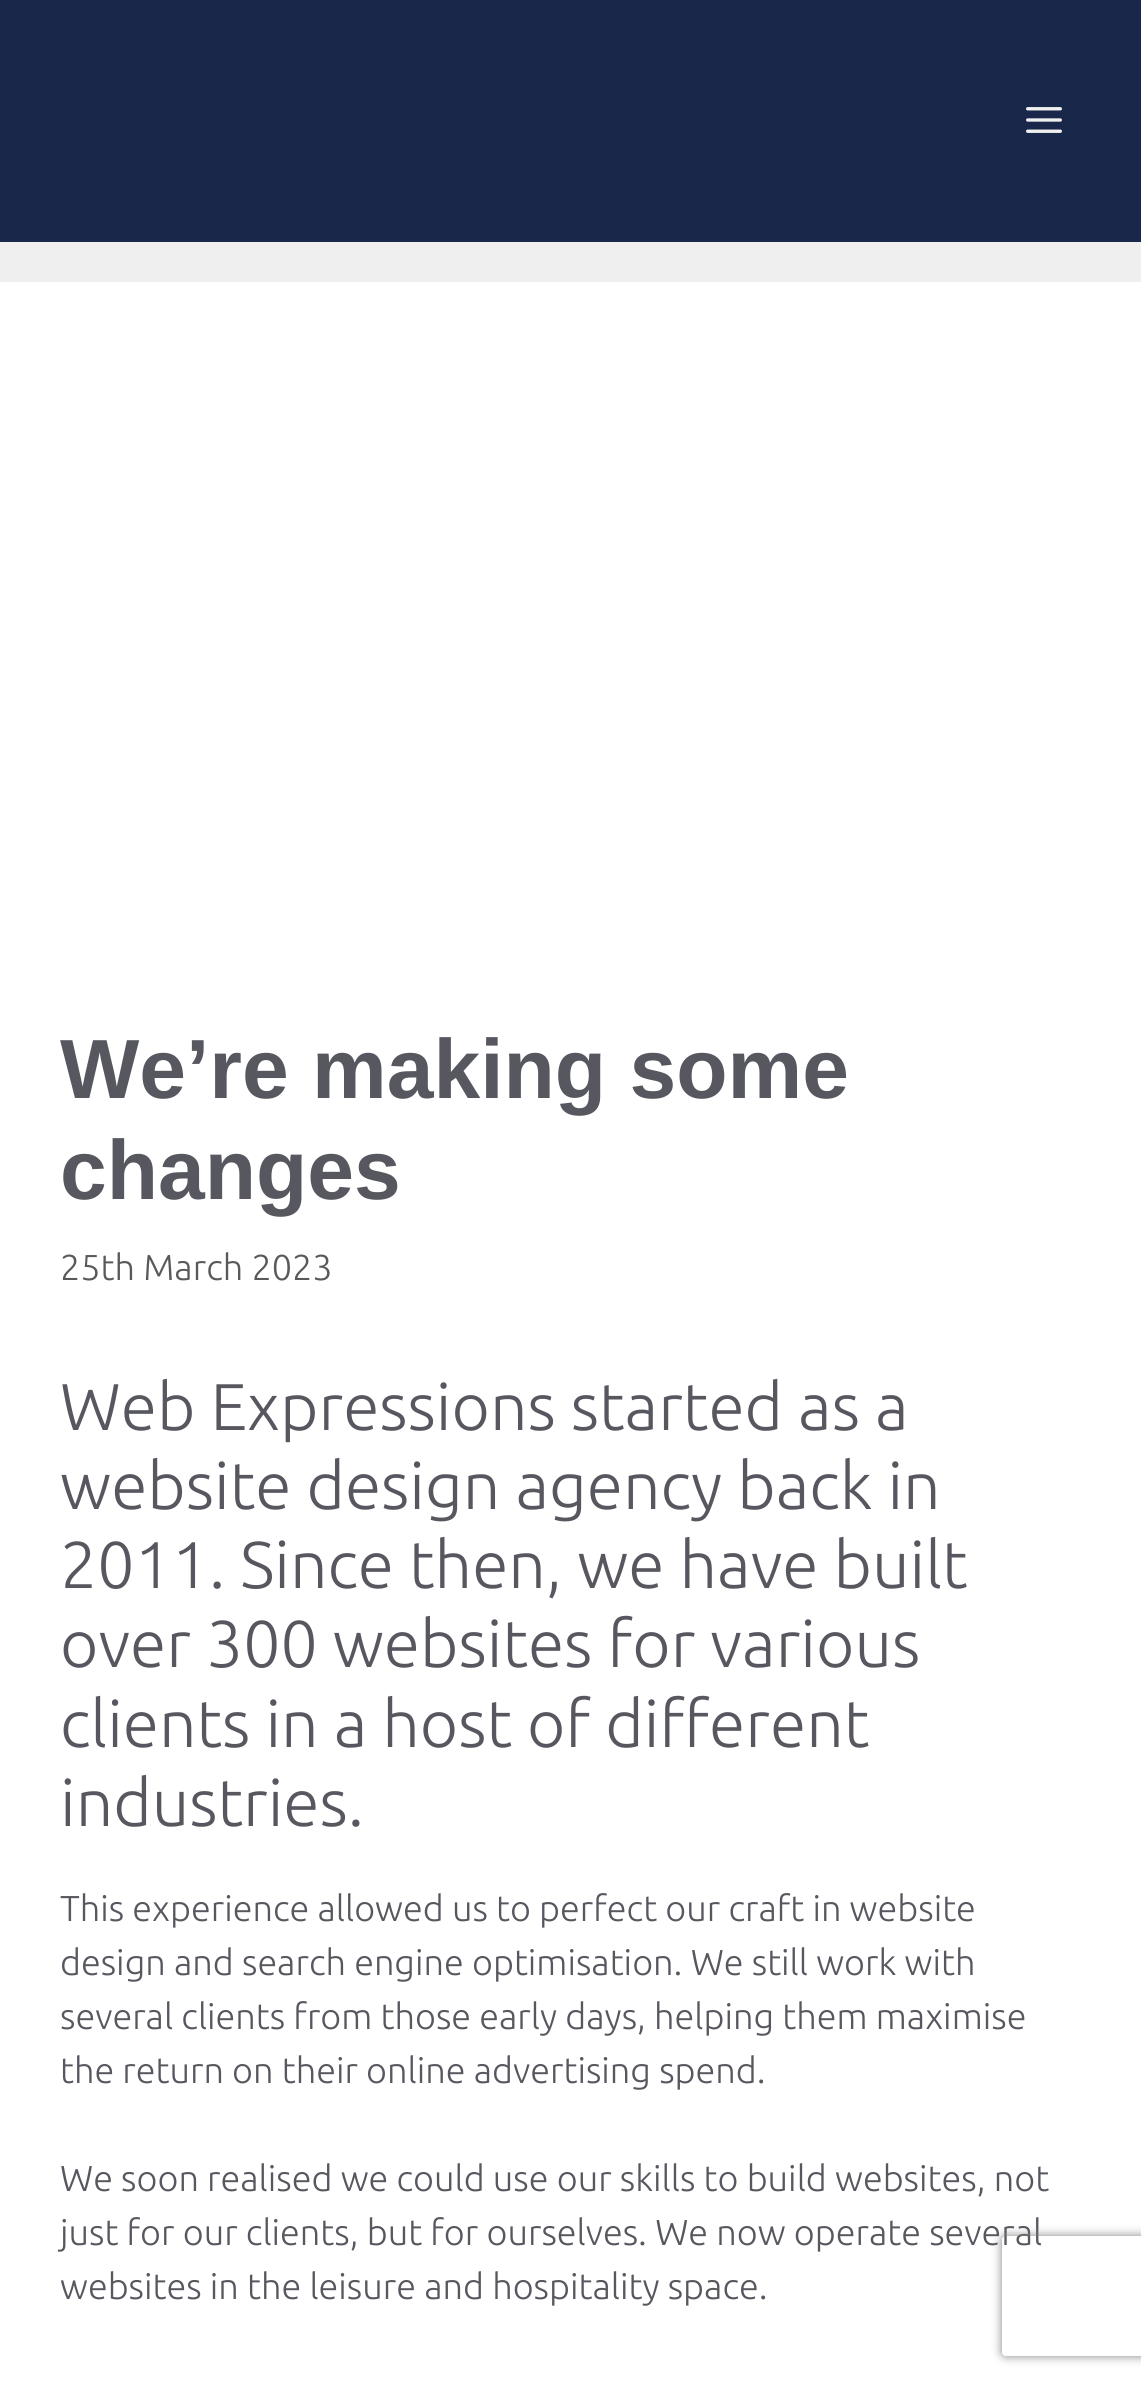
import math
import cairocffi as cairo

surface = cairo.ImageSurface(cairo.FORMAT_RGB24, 1141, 2383)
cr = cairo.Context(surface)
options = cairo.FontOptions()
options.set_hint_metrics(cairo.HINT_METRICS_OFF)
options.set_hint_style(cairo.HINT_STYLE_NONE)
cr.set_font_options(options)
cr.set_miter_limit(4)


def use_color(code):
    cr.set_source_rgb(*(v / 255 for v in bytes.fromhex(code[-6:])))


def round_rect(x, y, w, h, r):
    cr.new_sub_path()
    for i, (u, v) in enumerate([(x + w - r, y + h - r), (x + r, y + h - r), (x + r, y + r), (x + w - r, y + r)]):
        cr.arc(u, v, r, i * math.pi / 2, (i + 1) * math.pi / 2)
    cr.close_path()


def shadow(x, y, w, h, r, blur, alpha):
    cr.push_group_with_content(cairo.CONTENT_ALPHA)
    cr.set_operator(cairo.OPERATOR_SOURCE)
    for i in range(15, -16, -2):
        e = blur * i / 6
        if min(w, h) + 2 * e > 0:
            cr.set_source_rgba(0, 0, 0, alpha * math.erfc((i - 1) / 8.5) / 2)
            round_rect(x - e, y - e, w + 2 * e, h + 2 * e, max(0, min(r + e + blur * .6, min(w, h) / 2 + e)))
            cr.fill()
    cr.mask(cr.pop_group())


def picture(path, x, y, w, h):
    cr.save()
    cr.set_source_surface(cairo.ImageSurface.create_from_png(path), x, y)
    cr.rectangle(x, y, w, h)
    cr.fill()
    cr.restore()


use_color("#efefef")
cr.paint()
use_color("#19284a")
cr.rectangle(0, 0, 1141, 242)
cr.fill()
picture("img1.png", 1026, 107, 36, 26)
use_color("#ffffff")
cr.rectangle(0, 282, 1141, 2101)
cr.fill()
cr.select_font_face("Liberation Sans", cairo.FONT_SLANT_NORMAL, cairo.FONT_WEIGHT_BOLD)
cr.set_font_size(84)
use_color("#575760")
cr.move_to(60, 1098)
cr.show_text("We’re making some")
cr.move_to(60, 1199)
cr.show_text("changes")
cr.select_font_face("Ubuntu Light")
cr.set_font_size(36)
use_color("#595959")
cr.move_to(60, 1280)
cr.show_text("25th March 2023")
cr.set_font_size(66)
use_color("#575760")
cr.move_to(60, 1430)
cr.show_text("Web Expressions started as a")
cr.move_to(60, 1509)
cr.show_text("website design agency back in")
cr.move_to(60, 1588)
cr.show_text("2011. Since then, we have built")
cr.move_to(60, 1667)
cr.show_text("over 300 websites for various")
cr.move_to(60, 1747)
cr.show_text("clients in a host of different")
cr.move_to(60, 1826)
cr.show_text("industries.")
cr.set_font_size(36)
cr.move_to(60, 1921)
cr.show_text("This experience allowed us to perfect our craft in website")
cr.move_to(60, 1975)
cr.show_text("design and search engine optimisation. We still work with")
cr.move_to(60, 2029)
cr.show_text("several clients from those early days, helping them maximise")
cr.move_to(60, 2083)
cr.show_text("the return on their online advertising spend.")
cr.move_to(60, 2191)
cr.show_text("We soon realised we could use our skills to build websites, not")
cr.move_to(60, 2245)
cr.show_text("just for our clients, but for ourselves. We now operate several")
cr.move_to(60, 2299)
cr.show_text("websites in the leisure and hospitality space.")
cr.save()
cr.set_fill_rule(cairo.FILL_RULE_EVEN_ODD)
cr.new_path()
cr.move_to(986, 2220)
cr.line_to(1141, 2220)
cr.line_to(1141, 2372)
cr.line_to(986, 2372)
cr.close_path()
cr.move_to(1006, 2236)
cr.line_to(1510, 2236)
cr.curve_to(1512, 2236, 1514, 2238, 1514, 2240)
cr.line_to(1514, 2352)
cr.curve_to(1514, 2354, 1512, 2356, 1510, 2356)
cr.line_to(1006, 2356)
cr.curve_to(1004, 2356, 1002, 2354, 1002, 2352)
cr.line_to(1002, 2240)
cr.curve_to(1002, 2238, 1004, 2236, 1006, 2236)
cr.close_path()
cr.clip()
use_color("#808080")
shadow(1002, 2236, 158, 120, 4, 5, 1)
cr.restore()
surface.write_to_png("result.png")
